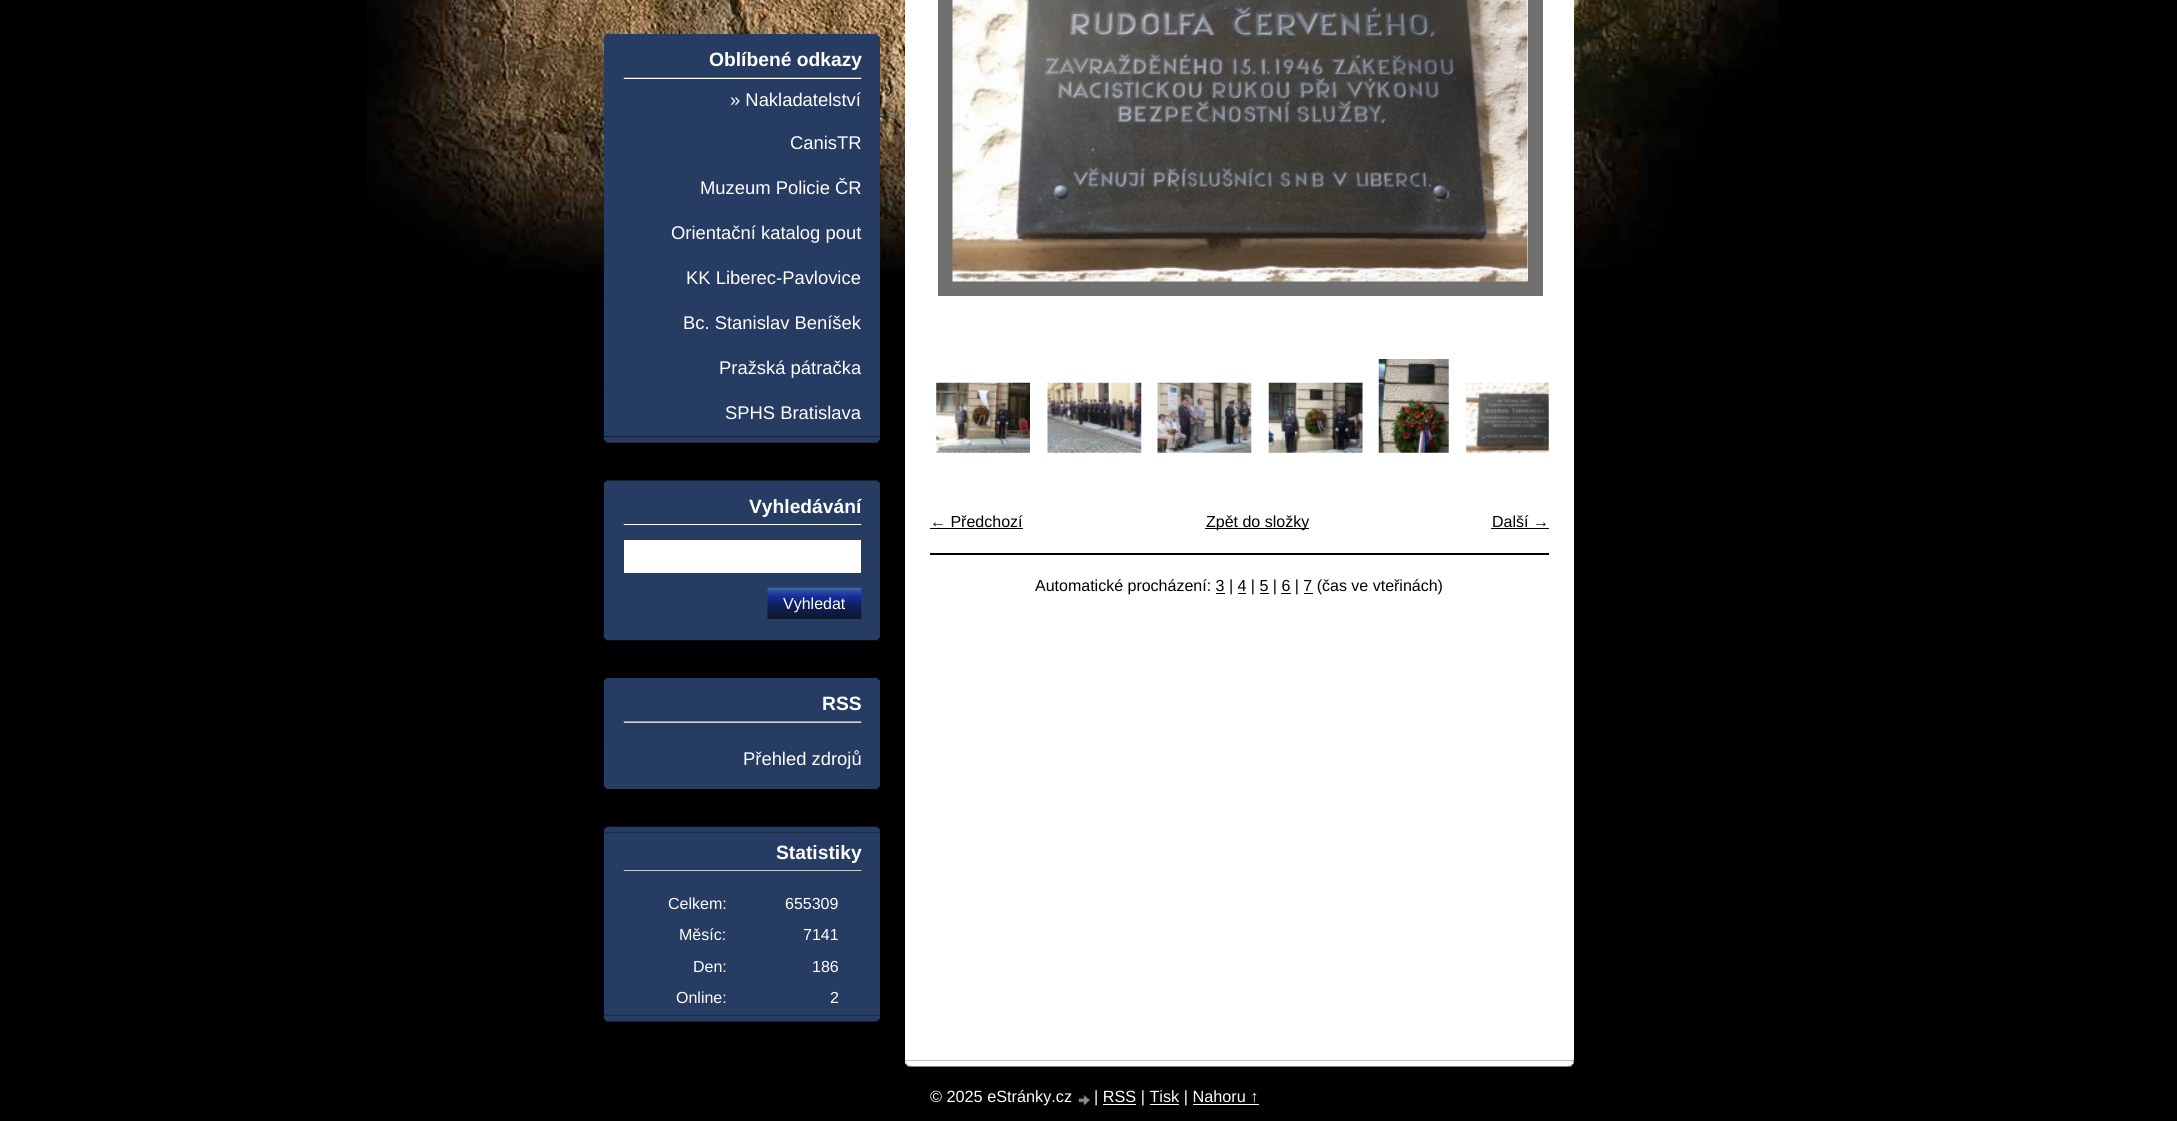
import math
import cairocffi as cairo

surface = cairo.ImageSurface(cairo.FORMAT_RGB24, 2177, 1121)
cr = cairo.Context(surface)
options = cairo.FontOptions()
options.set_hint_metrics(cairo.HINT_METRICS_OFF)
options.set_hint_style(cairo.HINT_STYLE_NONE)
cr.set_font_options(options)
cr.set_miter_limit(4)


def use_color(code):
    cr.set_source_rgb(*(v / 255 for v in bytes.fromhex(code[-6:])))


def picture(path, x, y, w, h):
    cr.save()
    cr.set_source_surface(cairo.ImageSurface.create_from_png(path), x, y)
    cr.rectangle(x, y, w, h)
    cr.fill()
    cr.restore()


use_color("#000000")
cr.paint()
picture("img1.png", 366, 0, 1413, 272)
use_color("#ffffff")
cr.rectangle(905, 0, 669, 1060)
cr.fill()
picture("img2.png", 603, 436, 277, 7)
use_color("#263c63")
cr.rectangle(604, 40, 276, 396)
cr.fill()
picture("img3.png", 623, 77, 239, 2)
picture("img4.png", 603, 34, 277, 6)
cr.select_font_face("Liberation Sans", cairo.FONT_SLANT_NORMAL, cairo.FONT_WEIGHT_BOLD)
cr.set_font_size(19.25)
use_color("#ffffff")
cr.move_to(709, 66)
cr.show_text("Oblíbené odkazy")
picture("img5.png", 603, 89, 1, 71)
cr.select_font_face("Liberation Sans")
cr.set_font_size(18.4)
cr.move_to(730, 106)
cr.show_text("» Nakladatelství")
cr.move_to(790, 149)
cr.show_text("CanisTR")
cr.set_source_rgba(0.125, 0.188, 0.376, 0.06)
cr.rectangle(603, 170, 1, 36)
cr.fill()
use_color("#ffffff")
cr.move_to(700, 194)
cr.show_text("Muzeum Policie ČR")
picture("img6.png", 603, 214, 1, 37)
cr.move_to(671, 239)
cr.show_text("Orientační katalog pout")
picture("img7.png", 603, 259, 1, 37)
cr.move_to(686, 284)
cr.show_text("KK Liberec-Pavlovice")
picture("img8.png", 603, 304, 1, 37)
cr.move_to(683, 329)
cr.show_text("Bc. Stanislav Beníšek")
picture("img8.png", 603, 349, 1, 37)
cr.move_to(719, 374)
cr.show_text("Pražská pátračka")
picture("img8.png", 603, 394, 1, 37)
cr.move_to(725, 419)
cr.show_text("SPHS Bratislava")
picture("img9.png", 603, 634, 277, 7)
use_color("#263c63")
cr.rectangle(604, 486, 276, 148)
cr.fill()
picture("img10.png", 623, 524, 239, 1)
picture("img11.png", 603, 480, 277, 6)
cr.select_font_face("Liberation Sans", cairo.FONT_SLANT_NORMAL, cairo.FONT_WEIGHT_BOLD)
cr.set_font_size(19.25)
use_color("#ffffff")
cr.move_to(749, 513)
cr.show_text("Vyhledávání")
cr.rectangle(624, 540, 237, 33)
cr.fill()
picture("img12.png", 767, 587, 95, 32)
cr.select_font_face("Liberation Sans")
cr.set_font_size(16)
cr.move_to(783, 609)
cr.show_text("Vyhledat")
picture("img13.png", 603, 782, 277, 7)
use_color("#263c63")
cr.rectangle(604, 684, 276, 99)
cr.fill()
picture("img14.png", 623, 721, 239, 2)
picture("img15.png", 603, 677, 277, 7)
cr.select_font_face("Liberation Sans", cairo.FONT_SLANT_NORMAL, cairo.FONT_WEIGHT_BOLD)
cr.set_font_size(19.25)
use_color("#ffffff")
cr.move_to(822, 710)
cr.show_text("RSS")
picture("img16.png", 603, 740, 1, 37)
cr.select_font_face("Liberation Sans")
cr.set_font_size(18.4)
cr.move_to(743, 765)
cr.show_text("Přehled zdrojů")
picture("img17.png", 603, 1015, 277, 7)
use_color("#263c63")
cr.rectangle(604, 833, 276, 182)
cr.fill()
picture("img18.png", 623, 870, 239, 1)
picture("img19.png", 603, 826, 277, 7)
cr.select_font_face("Liberation Sans", cairo.FONT_SLANT_NORMAL, cairo.FONT_WEIGHT_BOLD)
cr.set_font_size(19.25)
use_color("#ffffff")
cr.move_to(776, 859)
cr.show_text("Statistiky")
cr.select_font_face("Liberation Sans")
cr.set_font_size(16)
cr.move_to(668, 909)
cr.show_text("Celkem:")
cr.move_to(785, 909)
cr.show_text("655309")
cr.move_to(679, 940)
cr.show_text("Měsíc:")
cr.move_to(803, 940)
cr.show_text("7141")
cr.move_to(693, 972)
cr.show_text("Den:")
cr.move_to(812, 972)
cr.show_text("186")
cr.move_to(676, 1003)
cr.show_text("Online:")
cr.move_to(830, 1003)
cr.show_text("2")
cr.rectangle(945.5, -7.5, 590, 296)
use_color("#707070")
cr.set_line_width(15)
cr.stroke()
picture("img20.png", 952, 0, 576, 282)
picture("img21.png", 936, 382, 94, 71)
picture("img22.png", 1047, 382, 95, 71)
picture("img23.png", 1157, 382, 95, 71)
picture("img24.png", 1268, 382, 95, 71)
picture("img25.png", 1378, 359, 71, 94)
picture("img26.png", 1466, 382, 83, 71)
use_color("#000000")
cr.rectangle(930, 553, 619, 2)
cr.fill()
cr.move_to(930, 527)
cr.show_text("← Předchozí")
cr.rectangle(930, 528, 93, 1)
cr.fill()
cr.rectangle(1205, 528, 104, 1)
cr.fill()
cr.move_to(1206, 527)
cr.show_text("Zpět do složky")
cr.move_to(1492, 527)
cr.show_text("Další →")
cr.rectangle(1491, 528, 58, 1)
cr.fill()
cr.move_to(1035, 591)
cr.show_text("Automatické procházení: 3 | 4 | 5 | 6 | 7 (čas ve vteřinách)")
cr.rectangle(1216, 593, 9, 1)
cr.fill()
cr.rectangle(1238, 593, 8, 1)
cr.fill()
cr.rectangle(1260, 593, 9, 1)
cr.fill()
cr.rectangle(1281, 593, 10, 1)
cr.fill()
cr.rectangle(1304, 593, 9, 1)
cr.fill()
picture("img27.png", 905, 1060, 669, 7)
cr.set_font_size(16.25)
use_color("#ffffff")
cr.move_to(930, 1102)
cr.show_text("© 2025 eStránky.cz")
picture("img28.png", 1078, 1095, 12, 11)
cr.move_to(1094, 1102)
cr.show_text("| RSS | Tisk | Nahoru ↑")
cr.rectangle(1103, 1104, 33, 1)
cr.fill()
cr.rectangle(1150, 1104, 29, 1)
cr.fill()
cr.rectangle(1193, 1104, 66, 1)
cr.fill()
surface.write_to_png("result.png")
